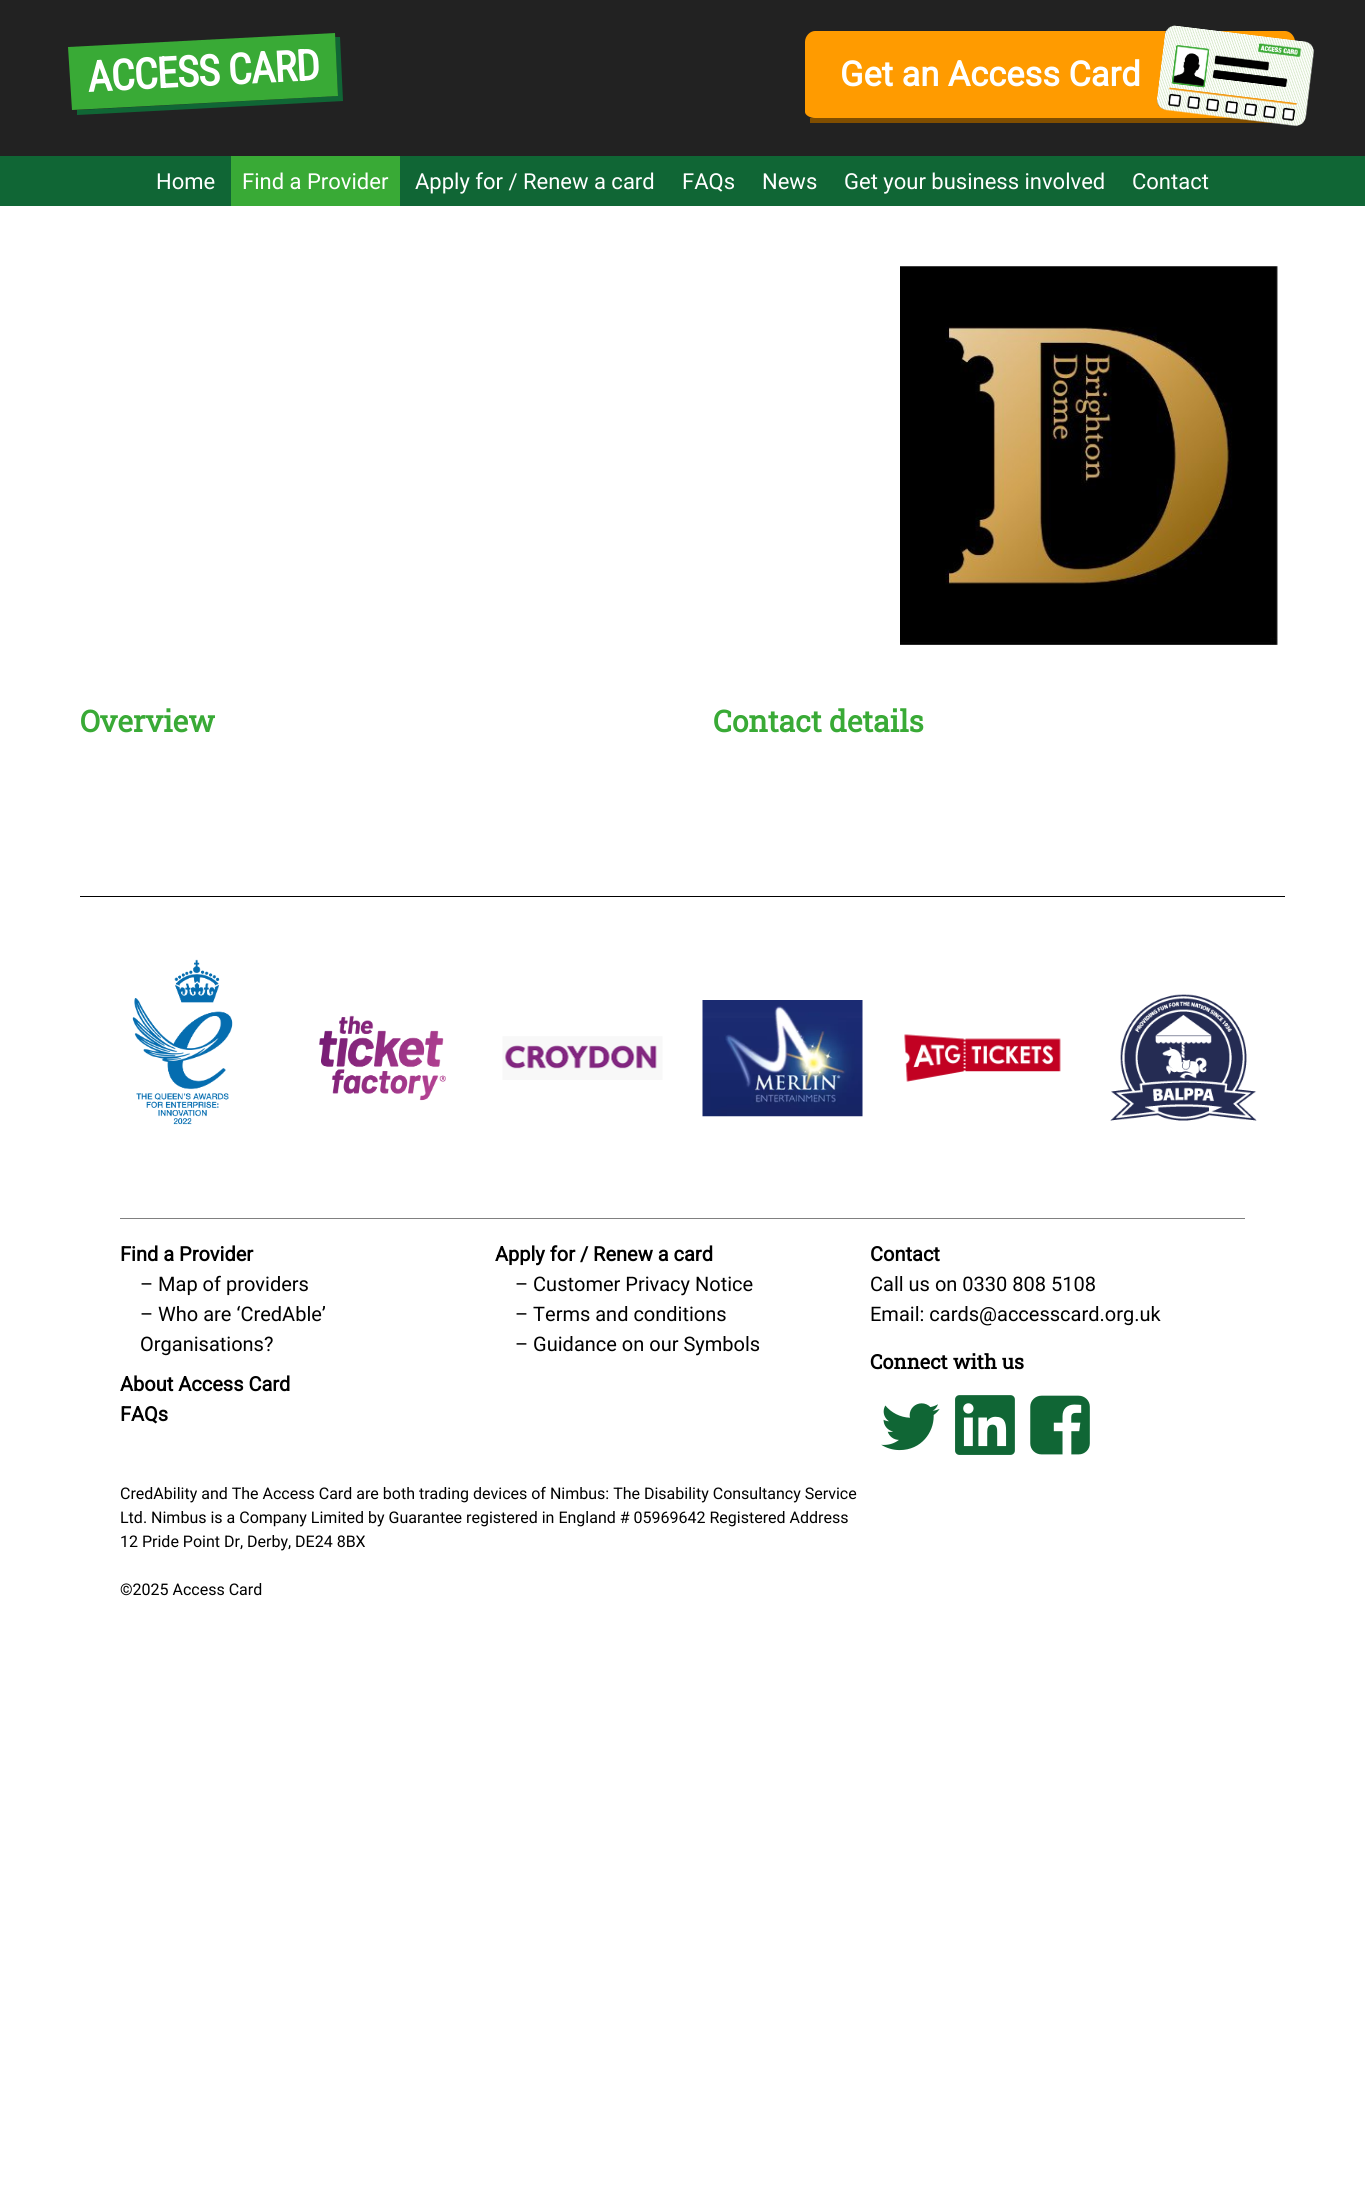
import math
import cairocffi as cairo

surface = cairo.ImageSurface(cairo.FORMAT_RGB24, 1365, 2203)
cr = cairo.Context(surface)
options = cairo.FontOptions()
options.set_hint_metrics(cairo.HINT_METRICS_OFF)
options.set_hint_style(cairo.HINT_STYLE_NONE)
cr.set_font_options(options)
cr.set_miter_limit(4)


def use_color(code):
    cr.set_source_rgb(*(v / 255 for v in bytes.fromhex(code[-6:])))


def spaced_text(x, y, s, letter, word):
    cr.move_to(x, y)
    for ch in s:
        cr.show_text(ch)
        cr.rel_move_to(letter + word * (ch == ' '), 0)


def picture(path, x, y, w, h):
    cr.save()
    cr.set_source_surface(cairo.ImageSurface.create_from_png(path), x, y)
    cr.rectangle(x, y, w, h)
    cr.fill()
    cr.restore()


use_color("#ffffff")
cr.paint()
use_color("#222222")
cr.rectangle(0, 0, 1365, 156)
cr.fill()
use_color("#106635")
cr.new_path()
cr.move_to(77, 110)
cr.line_to(77, 115)
cr.line_to(343, 101)
cr.line_to(340, 37)
cr.line_to(335, 37)
cr.line_to(338, 96)
cr.close_path()
cr.fill()
use_color("#39aa36")
cr.new_path()
cr.move_to(68, 47)
cr.line_to(335, 33)
cr.line_to(338, 96)
cr.line_to(72, 110)
cr.close_path()
cr.fill()
cr.select_font_face("Roboto Condensed", cairo.FONT_SLANT_NORMAL, cairo.FONT_WEIGHT_BOLD)
cr.set_font_size(42.5)
use_color("#ffffff")
cr.save()
cr.translate(88, 92)
cr.rotate(-3 * math.pi / 180)
spaced_text(0, 0, "ACCESS CARD", -1, 0)
cr.restore()
use_color("#ff9b00")
cr.new_path()
cr.move_to(815, 31)
cr.line_to(1285, 31)
cr.curve_to(1290, 31, 1295, 36, 1295, 42)
cr.line_to(1295, 112)
cr.curve_to(1295, 115, 1290, 118, 1285, 118)
cr.line_to(815, 118)
cr.curve_to(810, 118, 805, 115, 805, 112)
cr.line_to(805, 42)
cr.curve_to(805, 36, 810, 31, 815, 31)
cr.close_path()
cr.fill()
use_color("#804e00")
cr.rectangle(810, 118, 464, 5)
cr.fill()
cr.select_font_face("Roboto", cairo.FONT_SLANT_NORMAL, cairo.FONT_WEIGHT_BOLD)
cr.set_font_size(34.4)
use_color("#ffffff")
cr.move_to(840, 86)
cr.show_text("Get an Access Card")
picture("img1.png", 1156, 25, 159, 102)
use_color("#106635")
cr.rectangle(0, 156, 1365, 50)
cr.fill()
cr.select_font_face("Roboto")
cr.set_font_size(22)
use_color("#ffffff")
cr.move_to(156, 189)
cr.show_text("Home")
use_color("#39aa36")
cr.rectangle(231, 156, 169, 50)
cr.fill()
use_color("#ffffff")
cr.move_to(242, 189)
cr.show_text("Find a Provider")
cr.move_to(415, 189)
cr.show_text("Apply for / Renew a card")
cr.move_to(682, 189)
cr.show_text("FAQs")
cr.move_to(762, 189)
cr.show_text("News")
cr.move_to(844, 189)
cr.show_text("Get your business involved")
cr.move_to(1132, 189)
cr.show_text("Contact")
picture("img2.png", 900, 266, 378, 379)
cr.select_font_face("Roboto Slab", cairo.FONT_SLANT_NORMAL, cairo.FONT_WEIGHT_BOLD)
cr.set_font_size(30)
use_color("#39aa36")
cr.move_to(80, 732)
cr.show_text("Overview")
cr.move_to(713, 732)
cr.show_text("Contact details")
use_color("#000000")
cr.rectangle(80, 896, 1205, 1)
cr.fill()
picture("img3.png", 132, 959, 101, 166)
picture("img4.png", 319, 1015, 127, 86)
picture("img5.png", 502, 1036, 161, 44)
picture("img6.png", 702, 1000, 161, 117)
picture("img7.png", 904, 1034, 157, 48)
picture("img8.png", 1110, 994, 147, 127)
use_color("#808080")
cr.rectangle(120, 1218, 1125, 1)
cr.fill()
cr.select_font_face("Roboto", cairo.FONT_SLANT_NORMAL, cairo.FONT_WEIGHT_BOLD)
cr.set_font_size(20)
use_color("#000000")
cr.move_to(120, 1261)
cr.show_text("Find a Provider")
cr.select_font_face("Roboto")
cr.move_to(140, 1291)
cr.show_text("– Map of providers")
cr.move_to(140, 1321)
cr.show_text("– Who are ‘CredAble’")
cr.move_to(140, 1351)
cr.show_text("Organisations?")
cr.select_font_face("Roboto", cairo.FONT_SLANT_NORMAL, cairo.FONT_WEIGHT_BOLD)
cr.move_to(120, 1391)
cr.show_text("About Access Card")
cr.move_to(120, 1421)
cr.show_text("FAQs")
cr.move_to(495, 1261)
cr.show_text("Apply for / Renew a card")
cr.select_font_face("Roboto")
cr.move_to(515, 1291)
cr.show_text("– Customer Privacy Notice")
cr.move_to(515, 1321)
cr.show_text("– Terms and conditions")
cr.move_to(515, 1351)
cr.show_text("– Guidance on our Symbols")
cr.select_font_face("Roboto", cairo.FONT_SLANT_NORMAL, cairo.FONT_WEIGHT_BOLD)
cr.move_to(870, 1261)
cr.show_text("Contact")
cr.select_font_face("Roboto")
cr.move_to(870, 1291)
cr.show_text("Call us on 0330 808 5108")
cr.move_to(870, 1321)
cr.show_text("Email: cards@accesscard.org.uk")
cr.select_font_face("Roboto Slab", cairo.FONT_SLANT_NORMAL, cairo.FONT_WEIGHT_BOLD)
cr.move_to(870, 1369)
cr.show_text("Connect with us")
picture("img9.png", 881, 1403, 59, 48)
picture("img10.png", 955, 1395, 60, 60)
picture("img11.png", 1030, 1395, 60, 60)
cr.select_font_face("Roboto")
cr.set_font_size(16)
cr.move_to(120, 1499)
cr.show_text("CredAbility and The Access Card are both trading devices of Nimbus: The Disability Consultancy Service")
cr.move_to(120, 1523)
cr.show_text("Ltd. Nimbus is a Company Limited by Guarantee registered in England # 05969642 Registered Address")
cr.move_to(120, 1547)
cr.show_text("12 Pride Point Dr, Derby, DE24 8BX")
cr.move_to(120, 1595)
cr.show_text("©2025 Access Card")
surface.write_to_png("result.png")
